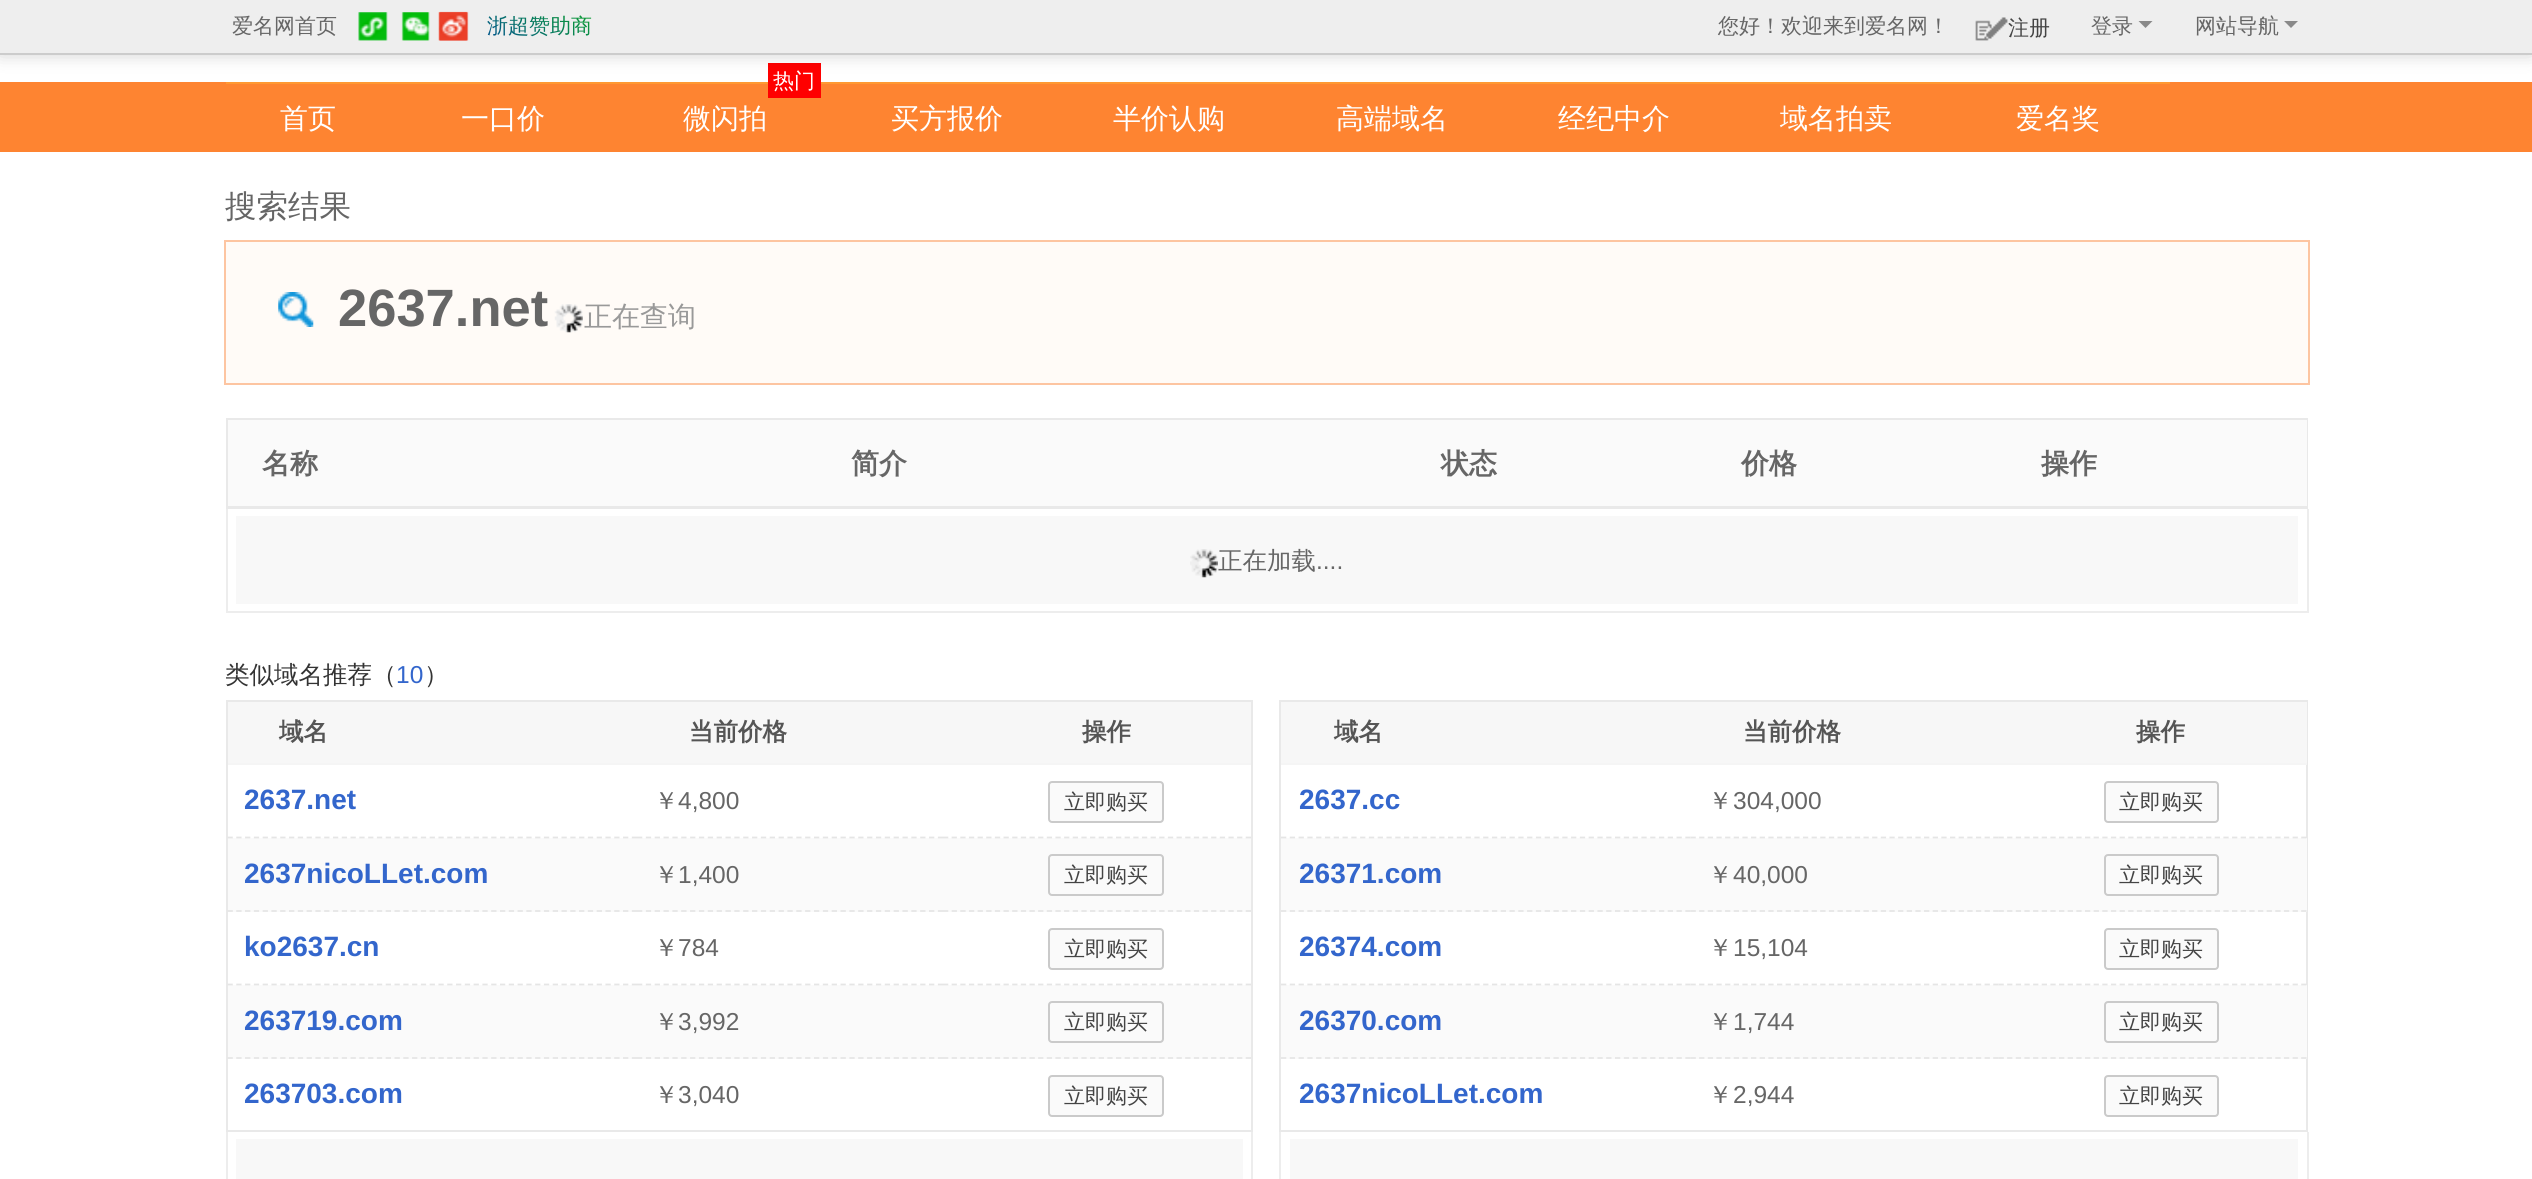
import math
import cairocffi as cairo

surface = cairo.ImageSurface(cairo.FORMAT_RGB24, 2532, 1179)
cr = cairo.Context(surface)
options = cairo.FontOptions()
options.set_hint_metrics(cairo.HINT_METRICS_OFF)
options.set_hint_style(cairo.HINT_STYLE_NONE)
cr.set_font_options(options)
cr.set_miter_limit(4)


def use_color(code):
    cr.set_source_rgb(*(v / 255 for v in bytes.fromhex(code[-6:])))


def round_rect(x, y, w, h, r):
    cr.new_sub_path()
    for i, (u, v) in enumerate([(x + w - r, y + h - r), (x + r, y + h - r), (x + r, y + r), (x + w - r, y + r)]):
        cr.arc(u, v, r, i * math.pi / 2, (i + 1) * math.pi / 2)
    cr.close_path()


def shadow(x, y, w, h, r, blur, alpha):
    cr.push_group_with_content(cairo.CONTENT_ALPHA)
    cr.set_operator(cairo.OPERATOR_SOURCE)
    for i in range(15, -16, -2):
        e = blur * i / 6
        if min(w, h) + 2 * e > 0:
            cr.set_source_rgba(0, 0, 0, alpha * math.erfc((i - 1) / 8.5) / 2)
            round_rect(x - e, y - e, w + 2 * e, h + 2 * e, max(0, min(r + e + blur * .6, min(w, h) / 2 + e)))
            cr.fill()
    cr.mask(cr.pop_group())


def picture(path, x, y, w, h):
    cr.save()
    cr.set_source_surface(cairo.ImageSurface.create_from_png(path), x, y)
    cr.rectangle(x, y, w, h)
    cr.fill()
    cr.restore()


use_color("#ffffff")
cr.paint()
use_color("#fe8431")
cr.rectangle(0, 82, 2532, 70)
cr.fill()
use_color("#ff9933")
cr.rectangle(226, 82, 611, 2)
cr.fill()
use_color("#ff0000")
cr.rectangle(768, 63, 53, 35)
cr.fill()
use_color("#000000")
shadow(0, 0, 2532, 54, 0, 9, 0.2)
use_color("#eeeeee")
cr.rectangle(0, 0, 2532, 53)
cr.fill()
use_color("#cccccc")
cr.rectangle(0, 53, 2532, 2)
cr.fill()
cr.select_font_face("WenQuanYi Zen Hei Medium")
cr.set_font_size(21)
use_color("#666666")
cr.move_to(232, 33)
cr.show_text("爱名网首页")
picture("img1.png", 358, 12, 30, 29)
picture("img2.png", 401, 12, 29, 29)
picture("img3.png", 438, 11, 30, 30)
picture("img4.png", 438, 12, 31, 29)
gradient = cairo.LinearGradient(519, 59, 561, -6.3)
gradient.add_color_stop_rgba(0, 0.012, 0.333, 0.561, 1)
gradient.add_color_stop_rgba(1, 0.051, 0.624, 0.188, 1)
cr.set_source(gradient)
cr.move_to(487, 33)
cr.show_text("浙超赞助商")
use_color("#666666")
cr.move_to(1718, 33)
cr.show_text("您好！欢迎来到爱名网！")
picture("img5.png", 1975, 17, 33, 24)
use_color("#444444")
cr.move_to(2008, 35)
cr.show_text("注册")
use_color("#666666")
cr.move_to(2091, 33)
cr.show_text("登录")
use_color("#898989")
cr.new_path()
cr.move_to(2138.5, 21)
cr.line_to(2152.5, 21)
cr.line_to(2145.5, 28)
cr.close_path()
cr.fill()
use_color("#666666")
cr.move_to(2195, 33)
cr.show_text("网站导航")
use_color("#898989")
cr.new_path()
cr.move_to(2284, 21)
cr.line_to(2298, 21)
cr.line_to(2291, 28)
cr.close_path()
cr.fill()
cr.set_font_size(28)
use_color("#ffffff")
cr.move_to(280, 128)
cr.show_text("首页")
cr.move_to(461, 128)
cr.show_text("一口价")
cr.set_font_size(21)
cr.move_to(773, 88)
cr.show_text("热门")
cr.set_font_size(28)
cr.move_to(683, 128)
cr.show_text("微闪拍")
cr.move_to(891, 128)
cr.show_text("买方报价")
use_color("#ff9933")
cr.rectangle(837, 82, 1333, 2)
cr.fill()
use_color("#ffffff")
cr.move_to(1113, 128)
cr.show_text("半价认购")
cr.move_to(1336, 128)
cr.show_text("高端域名")
cr.move_to(1558, 128)
cr.show_text("经纪中介")
cr.move_to(1780, 128)
cr.show_text("域名拍卖")
cr.move_to(2016, 128)
cr.show_text("爱名奖")
cr.set_font_size(31.5)
use_color("#666666")
cr.move_to(225, 217)
cr.show_text("搜索结果")
use_color("#fffbf7")
cr.rectangle(226, 242, 2082, 141)
cr.fill()
picture("img6.png", 278, 292, 36, 35)
picture("img7.png", 554, 304, 29, 29)
cr.rectangle(225, 241, 2084, 143)
use_color("#fdc5a1")
cr.stroke()
cr.select_font_face("Liberation Sans", cairo.FONT_SLANT_NORMAL, cairo.FONT_WEIGHT_BOLD)
cr.set_font_size(52.5)
use_color("#666666")
cr.move_to(338, 326)
cr.show_text("2637.net")
cr.select_font_face("WenQuanYi Zen Hei Medium")
cr.set_font_size(28)
use_color("#999999")
cr.move_to(584, 326)
cr.show_text("正在查询")
cr.rectangle(227, 419, 2080, 89)
use_color("#e9e9e9")
cr.stroke()
use_color("#fafafa")
cr.rectangle(228, 420, 2079, 86)
cr.fill()
use_color("#e9e9e9")
cr.rectangle(228, 506, 2079, 1)
cr.fill()
cr.select_font_face("WenQuanYi Zen Hei", cairo.FONT_SLANT_NORMAL, cairo.FONT_WEIGHT_BOLD)
use_color("#666666")
cr.move_to(262, 473)
cr.show_text("名称")
cr.move_to(851, 473)
cr.show_text("简介")
cr.move_to(1441, 473)
cr.show_text("状态")
cr.move_to(1741, 473)
cr.show_text("价格")
cr.move_to(2041, 473)
cr.show_text("操作")
use_color("#ededed")
cr.rectangle(2307, 509, 2, 104)
cr.fill()
cr.rectangle(226, 611, 2082, 2)
cr.fill()
cr.rectangle(226, 509, 2, 104)
cr.fill()
use_color("#f8f8f8")
cr.rectangle(236, 516, 2062, 88)
cr.fill()
picture("img8.png", 1190, 549, 28, 29)
cr.select_font_face("WenQuanYi Zen Hei Medium")
cr.set_font_size(24.5)
use_color("#666666")
cr.move_to(1218, 569)
cr.show_text("正在加载")
cr.select_font_face("Liberation Sans")
cr.move_to(1316, 569)
cr.show_text("....")
cr.select_font_face("WenQuanYi Zen Hei Medium")
use_color("#333333")
cr.move_to(225, 683)
cr.show_text("类似域名推荐（")
cr.select_font_face("Liberation Sans")
use_color("#3366cc")
cr.move_to(396, 683)
cr.show_text("10")
cr.select_font_face("WenQuanYi Zen Hei Medium")
use_color("#333333")
cr.move_to(424, 683)
cr.show_text("）")
cr.rectangle(227, 701, 1025, 430)
use_color("#e9e9e9")
cr.stroke()
use_color("#f7f7f7")
cr.rectangle(228, 702, 1023, 61)
cr.fill()
use_color("#f5f5f5")
cr.rectangle(228, 763, 1023, 2)
cr.fill()
cr.select_font_face("WenQuanYi Zen Hei", cairo.FONT_SLANT_NORMAL, cairo.FONT_WEIGHT_BOLD)
use_color("#555555")
cr.move_to(279, 740)
cr.show_text("域名")
cr.move_to(689, 740)
cr.show_text("当前价格")
cr.move_to(1082, 740)
cr.show_text("操作")
use_color("#fafafa")
cr.rectangle(228, 838, 1023, 74)
cr.fill()
cr.new_path()
cr.move_to(227.5, 837.5)
cr.line_to(637, 837.5)
use_color("#e5e5e5")
cr.set_line_width(1.8)
cr.set_dash([5.25, 3.54])
cr.stroke()
cr.select_font_face("Liberation Sans", cairo.FONT_SLANT_NORMAL, cairo.FONT_WEIGHT_BOLD)
cr.set_font_size(28)
use_color("#3366cc")
cr.move_to(244, 809)
cr.show_text("2637.net")
cr.new_path()
cr.move_to(637, 837.5)
cr.line_to(943, 837.5)
use_color("#e5e5e5")
cr.set_dash([5.25, 3.6])
cr.stroke()
cr.select_font_face("WenQuanYi Zen Hei Medium")
cr.set_font_size(24.5)
use_color("#666666")
cr.move_to(654, 809)
cr.show_text("￥")
cr.select_font_face("Liberation Sans")
cr.move_to(678, 809)
cr.show_text("4,800")
cr.new_path()
cr.move_to(943, 837.5)
cr.line_to(1251, 837.5)
use_color("#e5e5e5")
cr.set_dash([5.25, 3.4])
cr.stroke()
use_color("#fafafa")
round_rect(1049, 782, 114, 40, 3)
cr.fill_preserve()
use_color("#cacaca")
cr.set_line_width(2)
cr.set_dash([])
cr.stroke()
cr.select_font_face("WenQuanYi Zen Hei Medium")
cr.set_font_size(21)
use_color("#444444")
cr.move_to(1064, 809)
cr.show_text("立即购买")
cr.new_path()
cr.move_to(227.5, 911)
cr.line_to(637, 911)
use_color("#e5e5e5")
cr.set_line_width(1.8)
cr.set_dash([5.25, 3.54])
cr.stroke()
cr.select_font_face("Liberation Sans", cairo.FONT_SLANT_NORMAL, cairo.FONT_WEIGHT_BOLD)
cr.set_font_size(28)
use_color("#3366cc")
cr.move_to(244, 883)
cr.show_text("2637nicoLLet.com")
cr.new_path()
cr.move_to(637, 911)
cr.line_to(943, 911)
use_color("#e5e5e5")
cr.set_dash([5.25, 3.6])
cr.stroke()
cr.select_font_face("WenQuanYi Zen Hei Medium")
cr.set_font_size(24.5)
use_color("#666666")
cr.move_to(654, 883)
cr.show_text("￥")
cr.select_font_face("Liberation Sans")
cr.move_to(678, 883)
cr.show_text("1,400")
cr.new_path()
cr.move_to(943, 911)
cr.line_to(1251, 911)
use_color("#e5e5e5")
cr.set_dash([5.25, 3.4])
cr.stroke()
round_rect(1049, 855, 114, 40, 3)
use_color("#cacaca")
cr.set_line_width(2)
cr.set_dash([])
cr.stroke()
cr.select_font_face("WenQuanYi Zen Hei Medium")
cr.set_font_size(21)
use_color("#444444")
cr.move_to(1064, 882)
cr.show_text("立即购买")
use_color("#fafafa")
cr.rectangle(228, 985, 1023, 74)
cr.fill()
cr.new_path()
cr.move_to(227.5, 984.5)
cr.line_to(637, 984.5)
use_color("#e5e5e5")
cr.set_line_width(1.8)
cr.set_dash([5.25, 3.54])
cr.stroke()
cr.select_font_face("Liberation Sans", cairo.FONT_SLANT_NORMAL, cairo.FONT_WEIGHT_BOLD)
cr.set_font_size(28)
use_color("#3366cc")
cr.move_to(244, 956)
cr.show_text("ko2637.cn")
cr.new_path()
cr.move_to(637, 984.5)
cr.line_to(943, 984.5)
use_color("#e5e5e5")
cr.set_dash([5.25, 3.6])
cr.stroke()
cr.select_font_face("WenQuanYi Zen Hei Medium")
cr.set_font_size(24.5)
use_color("#666666")
cr.move_to(654, 956)
cr.show_text("￥")
cr.select_font_face("Liberation Sans")
cr.move_to(678, 956)
cr.show_text("784")
cr.new_path()
cr.move_to(943, 984.5)
cr.line_to(1251, 984.5)
use_color("#e5e5e5")
cr.set_dash([5.25, 3.4])
cr.stroke()
use_color("#fafafa")
round_rect(1049, 929, 114, 40, 3)
cr.fill_preserve()
use_color("#cacaca")
cr.set_line_width(2)
cr.set_dash([])
cr.stroke()
cr.select_font_face("WenQuanYi Zen Hei Medium")
cr.set_font_size(21)
use_color("#444444")
cr.move_to(1064, 956)
cr.show_text("立即购买")
cr.new_path()
cr.move_to(227.5, 1058)
cr.line_to(637, 1058)
use_color("#e5e5e5")
cr.set_line_width(1.8)
cr.set_dash([5.25, 3.54])
cr.stroke()
cr.select_font_face("Liberation Sans", cairo.FONT_SLANT_NORMAL, cairo.FONT_WEIGHT_BOLD)
cr.set_font_size(28)
use_color("#3366cc")
cr.move_to(244, 1030)
cr.show_text("263719.com")
cr.new_path()
cr.move_to(637, 1058)
cr.line_to(943, 1058)
use_color("#e5e5e5")
cr.set_dash([5.25, 3.6])
cr.stroke()
cr.select_font_face("WenQuanYi Zen Hei Medium")
cr.set_font_size(24.5)
use_color("#666666")
cr.move_to(654, 1030)
cr.show_text("￥")
cr.select_font_face("Liberation Sans")
cr.move_to(678, 1030)
cr.show_text("3,992")
cr.new_path()
cr.move_to(943, 1058)
cr.line_to(1251, 1058)
use_color("#e5e5e5")
cr.set_dash([5.25, 3.4])
cr.stroke()
round_rect(1049, 1002, 114, 40, 3)
use_color("#cacaca")
cr.set_line_width(2)
cr.set_dash([])
cr.stroke()
cr.select_font_face("WenQuanYi Zen Hei Medium")
cr.set_font_size(21)
use_color("#444444")
cr.move_to(1064, 1029)
cr.show_text("立即购买")
cr.select_font_face("Liberation Sans", cairo.FONT_SLANT_NORMAL, cairo.FONT_WEIGHT_BOLD)
cr.set_font_size(28)
use_color("#3366cc")
cr.move_to(244, 1103)
cr.show_text("263703.com")
cr.select_font_face("WenQuanYi Zen Hei Medium")
cr.set_font_size(24.5)
use_color("#666666")
cr.move_to(654, 1103)
cr.show_text("￥")
cr.select_font_face("Liberation Sans")
cr.move_to(678, 1103)
cr.show_text("3,040")
use_color("#fafafa")
round_rect(1049, 1076, 114, 40, 3)
cr.fill_preserve()
use_color("#cacaca")
cr.stroke()
cr.select_font_face("WenQuanYi Zen Hei Medium")
cr.set_font_size(21)
use_color("#444444")
cr.move_to(1064, 1103)
cr.show_text("立即购买")
use_color("#ededed")
cr.rectangle(1251, 1132, 2, 47)
cr.fill()
cr.rectangle(226, 1132, 2, 47)
cr.fill()
use_color("#f8f8f8")
cr.rectangle(236, 1139, 1007, 40)
cr.fill()
cr.rectangle(1280, 701, 1027, 430)
use_color("#e9e9e9")
cr.stroke()
use_color("#f7f7f7")
cr.rectangle(1281, 702, 1026, 61)
cr.fill()
use_color("#f5f5f5")
cr.rectangle(1281, 763, 1026, 2)
cr.fill()
cr.select_font_face("WenQuanYi Zen Hei", cairo.FONT_SLANT_NORMAL, cairo.FONT_WEIGHT_BOLD)
cr.set_font_size(24.5)
use_color("#555555")
cr.move_to(1334, 740)
cr.show_text("域名")
cr.move_to(1743, 740)
cr.show_text("当前价格")
cr.move_to(2136, 740)
cr.show_text("操作")
use_color("#fafafa")
cr.rectangle(1281, 838, 1026, 74)
cr.fill()
cr.new_path()
cr.move_to(1281, 837.5)
cr.line_to(1690.5, 837.5)
use_color("#e5e5e5")
cr.set_line_width(1.8)
cr.set_dash([5.25, 3.54])
cr.stroke()
cr.select_font_face("Liberation Sans", cairo.FONT_SLANT_NORMAL, cairo.FONT_WEIGHT_BOLD)
cr.set_font_size(28)
use_color("#3366cc")
cr.move_to(1299, 809)
cr.show_text("2637.cc")
cr.new_path()
cr.move_to(1690.5, 837.5)
cr.line_to(1998.5, 837.5)
use_color("#e5e5e5")
cr.set_dash([5.25, 3.4])
cr.stroke()
cr.select_font_face("WenQuanYi Zen Hei Medium")
cr.set_font_size(24.5)
use_color("#666666")
cr.move_to(1708, 809)
cr.show_text("￥")
cr.select_font_face("Liberation Sans")
cr.move_to(1733, 809)
cr.show_text("304,000")
cr.new_path()
cr.move_to(1998.5, 837.5)
cr.line_to(2306.5, 837.5)
use_color("#e5e5e5")
cr.stroke()
use_color("#fafafa")
round_rect(2105, 782, 113, 40, 3)
cr.fill_preserve()
use_color("#cacaca")
cr.set_line_width(2)
cr.set_dash([])
cr.stroke()
cr.select_font_face("WenQuanYi Zen Hei Medium")
cr.set_font_size(21)
use_color("#444444")
cr.move_to(2119, 809)
cr.show_text("立即购买")
cr.new_path()
cr.move_to(1281, 911)
cr.line_to(1690.5, 911)
use_color("#e5e5e5")
cr.set_line_width(1.8)
cr.set_dash([5.25, 3.54])
cr.stroke()
cr.select_font_face("Liberation Sans", cairo.FONT_SLANT_NORMAL, cairo.FONT_WEIGHT_BOLD)
cr.set_font_size(28)
use_color("#3366cc")
cr.move_to(1299, 883)
cr.show_text("26371.com")
cr.new_path()
cr.move_to(1690.5, 911)
cr.line_to(1998.5, 911)
use_color("#e5e5e5")
cr.set_dash([5.25, 3.4])
cr.stroke()
cr.select_font_face("WenQuanYi Zen Hei Medium")
cr.set_font_size(24.5)
use_color("#666666")
cr.move_to(1708, 883)
cr.show_text("￥")
cr.select_font_face("Liberation Sans")
cr.move_to(1733, 883)
cr.show_text("40,000")
cr.new_path()
cr.move_to(1998.5, 911)
cr.line_to(2306.5, 911)
use_color("#e5e5e5")
cr.stroke()
round_rect(2105, 855, 113, 40, 3)
use_color("#cacaca")
cr.set_line_width(2)
cr.set_dash([])
cr.stroke()
cr.select_font_face("WenQuanYi Zen Hei Medium")
cr.set_font_size(21)
use_color("#444444")
cr.move_to(2119, 882)
cr.show_text("立即购买")
use_color("#fafafa")
cr.rectangle(1281, 985, 1026, 74)
cr.fill()
cr.new_path()
cr.move_to(1281, 984.5)
cr.line_to(1690.5, 984.5)
use_color("#e5e5e5")
cr.set_line_width(1.8)
cr.set_dash([5.25, 3.54])
cr.stroke()
cr.select_font_face("Liberation Sans", cairo.FONT_SLANT_NORMAL, cairo.FONT_WEIGHT_BOLD)
cr.set_font_size(28)
use_color("#3366cc")
cr.move_to(1299, 956)
cr.show_text("26374.com")
cr.new_path()
cr.move_to(1690.5, 984.5)
cr.line_to(1998.5, 984.5)
use_color("#e5e5e5")
cr.set_dash([5.25, 3.4])
cr.stroke()
cr.select_font_face("WenQuanYi Zen Hei Medium")
cr.set_font_size(24.5)
use_color("#666666")
cr.move_to(1708, 956)
cr.show_text("￥")
cr.select_font_face("Liberation Sans")
cr.move_to(1733, 956)
cr.show_text("15,104")
cr.new_path()
cr.move_to(1998.5, 984.5)
cr.line_to(2306.5, 984.5)
use_color("#e5e5e5")
cr.stroke()
use_color("#fafafa")
round_rect(2105, 929, 113, 40, 3)
cr.fill_preserve()
use_color("#cacaca")
cr.set_line_width(2)
cr.set_dash([])
cr.stroke()
cr.select_font_face("WenQuanYi Zen Hei Medium")
cr.set_font_size(21)
use_color("#444444")
cr.move_to(2119, 956)
cr.show_text("立即购买")
cr.new_path()
cr.move_to(1281, 1058)
cr.line_to(1690.5, 1058)
use_color("#e5e5e5")
cr.set_line_width(1.8)
cr.set_dash([5.25, 3.54])
cr.stroke()
cr.select_font_face("Liberation Sans", cairo.FONT_SLANT_NORMAL, cairo.FONT_WEIGHT_BOLD)
cr.set_font_size(28)
use_color("#3366cc")
cr.move_to(1299, 1030)
cr.show_text("26370.com")
cr.new_path()
cr.move_to(1690.5, 1058)
cr.line_to(1998.5, 1058)
use_color("#e5e5e5")
cr.set_dash([5.25, 3.4])
cr.stroke()
cr.select_font_face("WenQuanYi Zen Hei Medium")
cr.set_font_size(24.5)
use_color("#666666")
cr.move_to(1708, 1030)
cr.show_text("￥")
cr.select_font_face("Liberation Sans")
cr.move_to(1733, 1030)
cr.show_text("1,744")
cr.new_path()
cr.move_to(1998.5, 1058)
cr.line_to(2306.5, 1058)
use_color("#e5e5e5")
cr.stroke()
round_rect(2105, 1002, 113, 40, 3)
use_color("#cacaca")
cr.set_line_width(2)
cr.set_dash([])
cr.stroke()
cr.select_font_face("WenQuanYi Zen Hei Medium")
cr.set_font_size(21)
use_color("#444444")
cr.move_to(2119, 1029)
cr.show_text("立即购买")
cr.select_font_face("Liberation Sans", cairo.FONT_SLANT_NORMAL, cairo.FONT_WEIGHT_BOLD)
cr.set_font_size(28)
use_color("#3366cc")
cr.move_to(1299, 1103)
cr.show_text("2637nicoLLet.com")
cr.select_font_face("WenQuanYi Zen Hei Medium")
cr.set_font_size(24.5)
use_color("#666666")
cr.move_to(1708, 1103)
cr.show_text("￥")
cr.select_font_face("Liberation Sans")
cr.move_to(1733, 1103)
cr.show_text("2,944")
use_color("#fafafa")
round_rect(2105, 1076, 113, 40, 3)
cr.fill_preserve()
use_color("#cacaca")
cr.stroke()
cr.select_font_face("WenQuanYi Zen Hei Medium")
cr.set_font_size(21)
use_color("#444444")
cr.move_to(2119, 1103)
cr.show_text("立即购买")
use_color("#ededed")
cr.rectangle(2307, 1132, 2, 47)
cr.fill()
cr.rectangle(1279, 1132, 2, 47)
cr.fill()
use_color("#f8f8f8")
cr.rectangle(1290, 1139, 1008, 40)
cr.fill()
surface.write_to_png("result.png")
